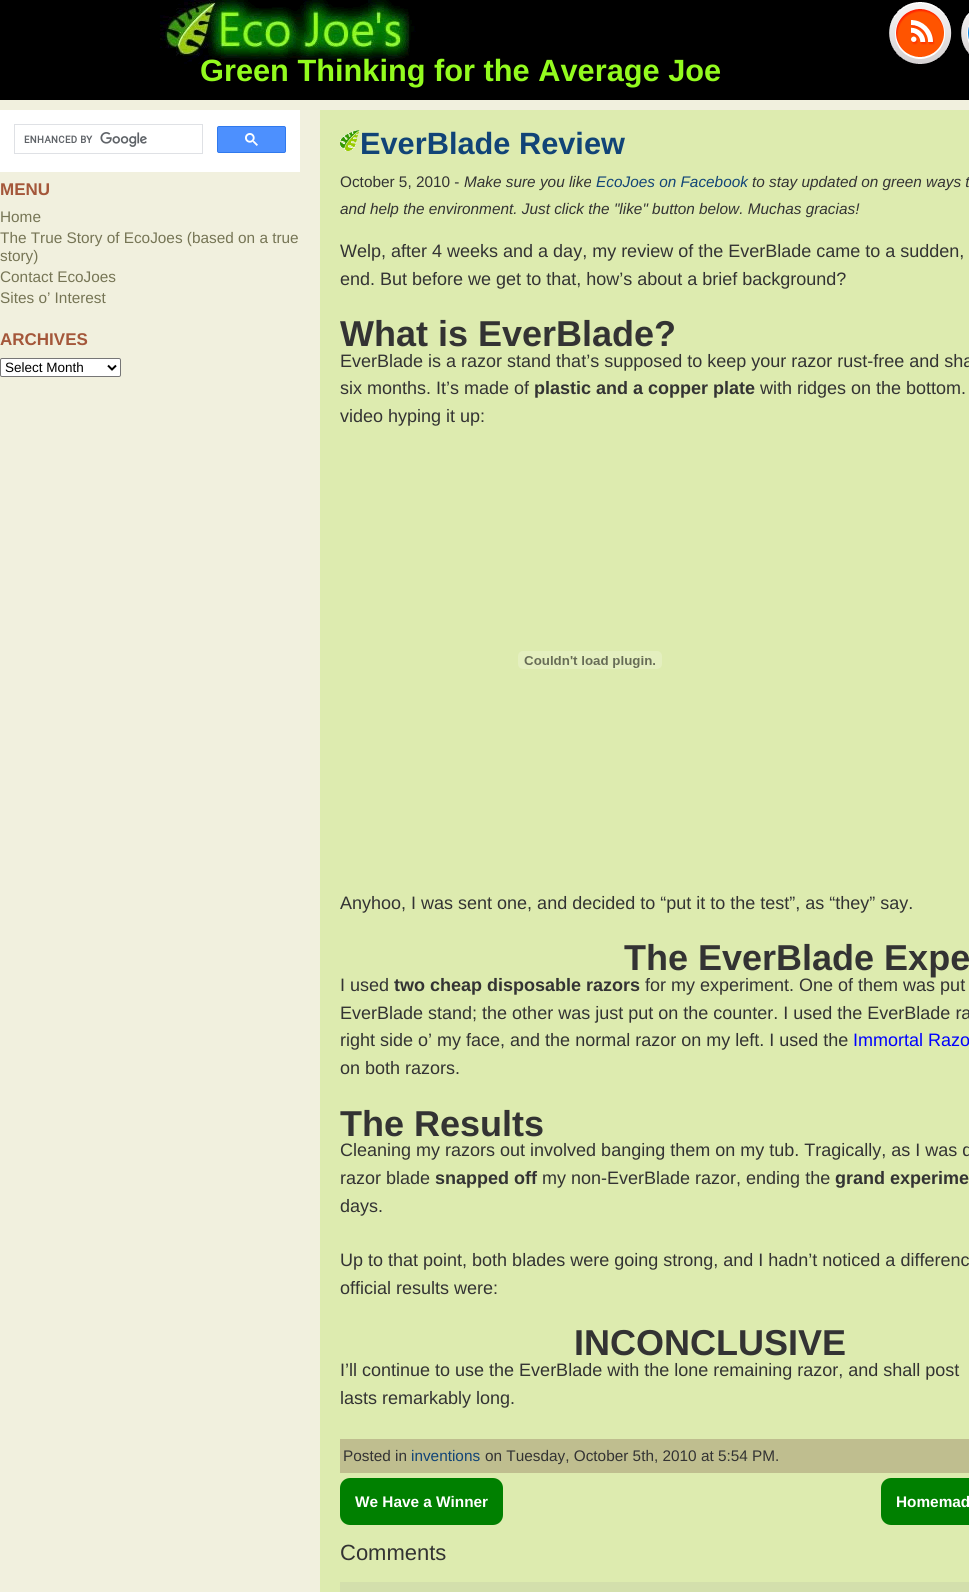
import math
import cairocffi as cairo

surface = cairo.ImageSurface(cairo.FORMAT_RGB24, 969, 1592)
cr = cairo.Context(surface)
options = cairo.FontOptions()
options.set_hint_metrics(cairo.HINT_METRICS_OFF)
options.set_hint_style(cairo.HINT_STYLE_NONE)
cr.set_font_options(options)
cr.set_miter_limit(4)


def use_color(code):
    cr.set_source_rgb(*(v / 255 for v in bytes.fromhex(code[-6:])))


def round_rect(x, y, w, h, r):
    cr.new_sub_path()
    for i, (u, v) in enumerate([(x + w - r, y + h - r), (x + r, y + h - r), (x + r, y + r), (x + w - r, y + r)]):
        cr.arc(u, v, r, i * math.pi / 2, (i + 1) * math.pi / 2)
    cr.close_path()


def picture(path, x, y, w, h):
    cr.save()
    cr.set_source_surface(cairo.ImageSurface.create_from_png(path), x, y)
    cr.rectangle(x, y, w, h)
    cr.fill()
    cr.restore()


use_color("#f1f0de")
cr.paint()
use_color("#000000")
cr.rectangle(0, 0, 969, 100)
cr.fill()
picture("img1.png", 160, 0, 256, 64)
picture("img2.png", 889, 2, 63, 62)
picture("img3.png", 961, 13, 8, 41)
cr.select_font_face("Liberation Sans", cairo.FONT_SLANT_NORMAL, cairo.FONT_WEIGHT_BOLD)
cr.set_font_size(30.75)
use_color("#93fb1e")
cr.move_to(200, 81)
cr.show_text("Green Thinking for the Average Joe")
use_color("#ffffff")
cr.rectangle(0, 110, 300, 62)
cr.fill()
cr.rectangle(14.5, 124.5, 188, 29)
use_color("#dfe1e5")
cr.set_line_width(1)
cr.stroke()
picture("img4.png", 24, 132, 123, 15)
use_color("#4d90fe")
round_rect(217.5, 126.5, 68, 26, 1.5)
cr.fill_preserve()
use_color("#3079ed")
cr.stroke()
picture("img5.png", 245, 133, 13, 13)
cr.set_font_size(17)
use_color("#a4573a")
cr.move_to(0, 195)
cr.show_text("MENU")
cr.select_font_face("Liberation Sans")
cr.set_font_size(15.35)
use_color("#767555")
cr.move_to(0, 222)
cr.show_text("Home")
cr.move_to(0, 243)
cr.show_text("The True Story of EcoJoes (based on a true")
cr.move_to(0, 261)
cr.show_text("story)")
cr.move_to(0, 282)
cr.show_text("Contact EcoJoes")
cr.move_to(0, 303)
cr.show_text("Sites o’ Interest")
cr.select_font_face("Liberation Sans", cairo.FONT_SLANT_NORMAL, cairo.FONT_WEIGHT_BOLD)
cr.set_font_size(17)
use_color("#a4573a")
cr.move_to(0, 345)
cr.show_text("ARCHIVES")
use_color("#ffffff")
round_rect(0.5, 358.5, 120, 18, 1.5)
cr.fill_preserve()
use_color("#767676")
cr.stroke()
cr.new_path()
cr.move_to(108, 365.5)
cr.line_to(112, 369.5)
cr.line_to(116, 365.5)
use_color("#000000")
cr.set_line_width(2)
cr.stroke()
cr.select_font_face("Liberation Sans")
cr.set_font_size(13.5)
cr.move_to(5, 372)
cr.show_text("Select Month")
use_color("#ddebaf")
cr.rectangle(320, 110, 649, 1482)
cr.fill()
picture("img6.png", 340, 130, 20, 21)
cr.select_font_face("Liberation Sans", cairo.FONT_SLANT_NORMAL, cairo.FONT_WEIGHT_BOLD)
cr.set_font_size(30.75)
use_color("#114477")
cr.move_to(360, 154)
cr.show_text("EverBlade Review")
cr.select_font_face("Liberation Sans")
cr.set_font_size(15.35)
use_color("#333333")
cr.move_to(340, 187)
cr.show_text("October 5, 2010 -")
cr.select_font_face("Liberation Sans", cairo.FONT_SLANT_ITALIC)
cr.move_to(464, 187)
cr.show_text("Make sure you like")
use_color("#114477")
cr.move_to(596, 187)
cr.show_text("EcoJoes on Facebook")
use_color("#333333")
cr.move_to(752, 187)
cr.show_text("to stay updated on green ways t")
cr.move_to(340, 214)
cr.show_text("and help the environment. Just click the \"like\" button below. Muchas gracias!")
cr.select_font_face("Liberation Sans")
cr.set_font_size(18)
cr.move_to(340, 257)
cr.show_text("Welp, after 4 weeks and a day, my review of the EverBlade came to a sudden,")
cr.move_to(340, 285)
cr.show_text("end. But before we get to that, how’s about a brief background?")
cr.select_font_face("Liberation Sans", cairo.FONT_SLANT_NORMAL, cairo.FONT_WEIGHT_BOLD)
cr.set_font_size(36)
cr.move_to(340, 346)
cr.show_text("What is EverBlade?")
cr.select_font_face("Liberation Sans")
cr.set_font_size(18)
cr.move_to(340, 367)
cr.show_text("EverBlade is a razor stand that’s supposed to keep your razor rust-free and sha")
cr.move_to(340, 394)
cr.show_text("six months. It’s made of")
cr.select_font_face("Liberation Sans", cairo.FONT_SLANT_NORMAL, cairo.FONT_WEIGHT_BOLD)
cr.move_to(534, 394)
cr.show_text("plastic and a copper plate")
cr.select_font_face("Liberation Sans")
cr.move_to(760, 394)
cr.show_text("with ridges on the bottom.")
cr.move_to(340, 422)
cr.show_text("video hyping it up:")
picture("img7.png", 518, 651, 144, 18)
cr.move_to(340, 909)
cr.show_text("Anyhoo, I was sent one, and decided to “put it to the test”, as “they” say.")
cr.select_font_face("Liberation Sans", cairo.FONT_SLANT_NORMAL, cairo.FONT_WEIGHT_BOLD)
cr.set_font_size(36)
cr.move_to(624, 970)
cr.show_text("The EverBlade Expe")
cr.select_font_face("Liberation Sans")
cr.set_font_size(18)
cr.move_to(340, 991)
cr.show_text("I used")
cr.select_font_face("Liberation Sans", cairo.FONT_SLANT_NORMAL, cairo.FONT_WEIGHT_BOLD)
cr.move_to(394, 991)
cr.show_text("two cheap disposable razors")
cr.select_font_face("Liberation Sans")
cr.move_to(645, 991)
cr.show_text("for my experiment. One of them was put")
cr.move_to(340, 1019)
cr.show_text("EverBlade stand; the other was just put on the counter. I used the EverBlade ra")
cr.move_to(340, 1046)
cr.show_text("right side o’ my face, and the normal razor on my left. I used the")
use_color("#0000ff")
cr.move_to(853, 1046)
cr.show_text("Immortal Razo")
use_color("#333333")
cr.move_to(340, 1074)
cr.show_text("on both razors.")
cr.select_font_face("Liberation Sans", cairo.FONT_SLANT_NORMAL, cairo.FONT_WEIGHT_BOLD)
cr.set_font_size(36)
cr.move_to(340, 1136)
cr.show_text("The Results")
cr.select_font_face("Liberation Sans")
cr.set_font_size(18)
cr.move_to(340, 1156)
cr.show_text("Cleaning my razors out involved banging them on my tub. Tragically, as I was d")
cr.move_to(340, 1184)
cr.show_text("razor blade")
cr.select_font_face("Liberation Sans", cairo.FONT_SLANT_NORMAL, cairo.FONT_WEIGHT_BOLD)
cr.move_to(435, 1184)
cr.show_text("snapped off")
cr.select_font_face("Liberation Sans")
cr.move_to(542, 1184)
cr.show_text("my non-EverBlade razor, ending the")
cr.select_font_face("Liberation Sans", cairo.FONT_SLANT_NORMAL, cairo.FONT_WEIGHT_BOLD)
cr.move_to(835, 1184)
cr.show_text("grand experime")
cr.select_font_face("Liberation Sans")
cr.move_to(340, 1212)
cr.show_text("days.")
cr.move_to(340, 1266)
cr.show_text("Up to that point, both blades were going strong, and I hadn’t noticed a differenc")
cr.move_to(340, 1294)
cr.show_text("official results were:")
cr.select_font_face("Liberation Sans", cairo.FONT_SLANT_NORMAL, cairo.FONT_WEIGHT_BOLD)
cr.set_font_size(36)
cr.move_to(574, 1355)
cr.show_text("INCONCLUSIVE")
cr.select_font_face("Liberation Sans")
cr.set_font_size(18)
cr.move_to(340, 1376)
cr.show_text("I’ll continue to use the EverBlade with the lone remaining razor, and shall post")
cr.move_to(340, 1404)
cr.show_text("lasts remarkably long.")
use_color("#bfbe8f")
cr.rectangle(340, 1439, 629, 34)
cr.fill()
cr.set_font_size(15.35)
use_color("#333333")
cr.move_to(343, 1461)
cr.show_text("Posted in")
use_color("#114477")
cr.move_to(411, 1461)
cr.show_text("inventions")
use_color("#333333")
cr.move_to(485, 1461)
cr.show_text("on Tuesday, October 5th, 2010 at 5:54 PM.")
use_color("#008000")
round_rect(340, 1478, 163, 47, 10)
cr.fill()
cr.select_font_face("Liberation Sans", cairo.FONT_SLANT_NORMAL, cairo.FONT_WEIGHT_BOLD)
use_color("#ffffff")
cr.move_to(355, 1507)
cr.show_text("We Have a Winner")
use_color("#008000")
round_rect(881, 1478, 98, 47, 10)
cr.fill()
use_color("#ffffff")
cr.move_to(896, 1507)
cr.show_text("Homemad")
cr.select_font_face("Liberation Sans")
cr.set_font_size(22)
use_color("#333333")
cr.move_to(340, 1560)
cr.show_text("Comments")
use_color("#d3dfac")
cr.rectangle(340, 1582, 629, 10)
cr.fill()
surface.write_to_png("result.png")
